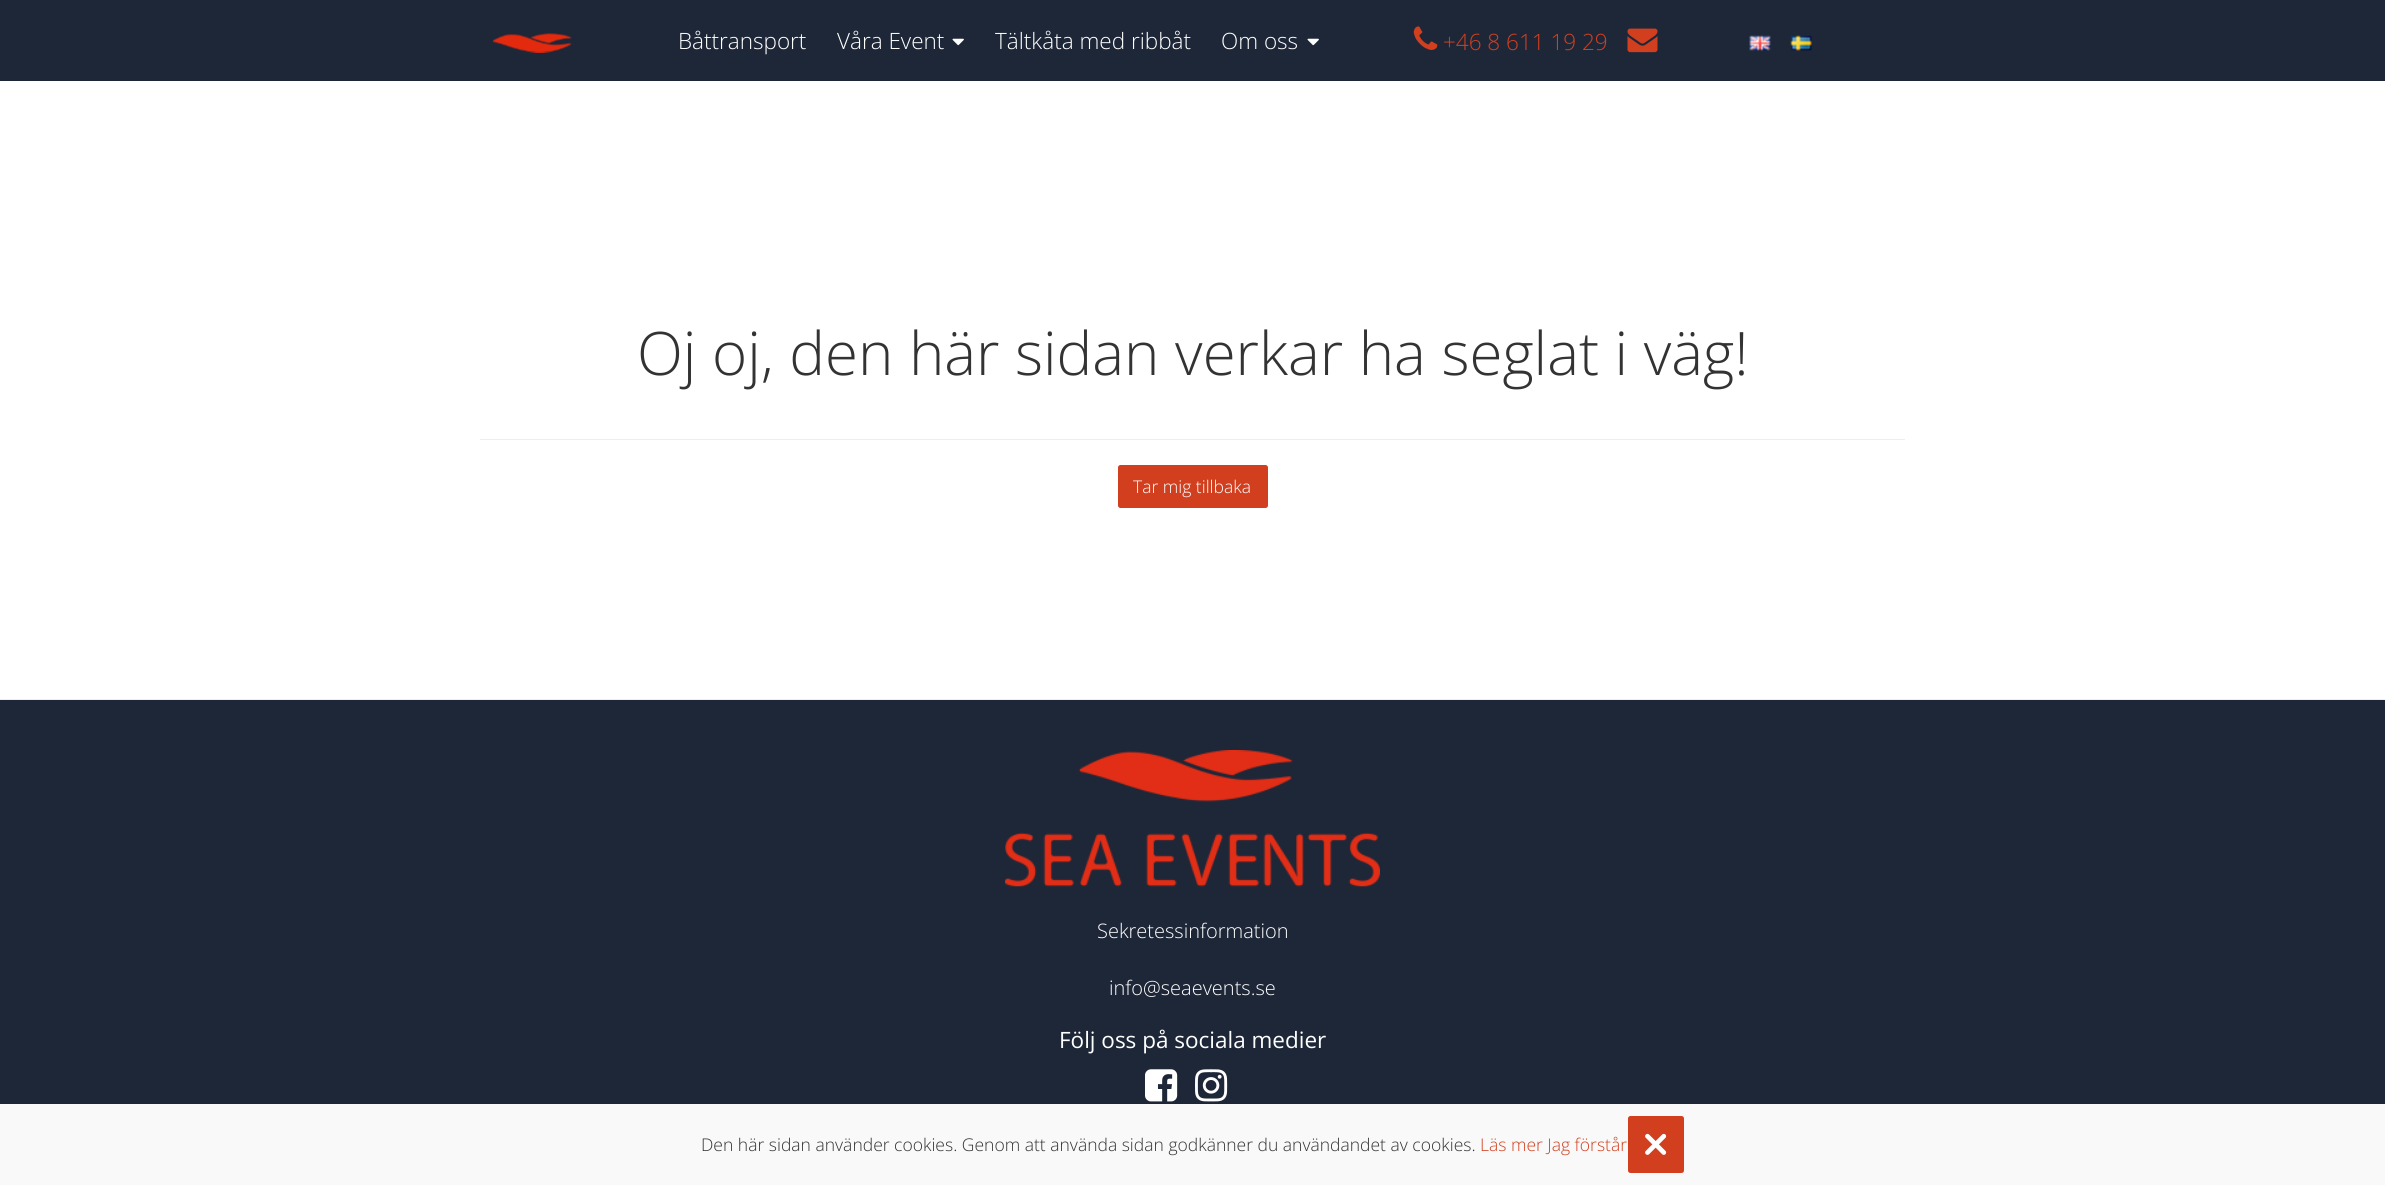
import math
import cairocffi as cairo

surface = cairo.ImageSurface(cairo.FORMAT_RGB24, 2385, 1185)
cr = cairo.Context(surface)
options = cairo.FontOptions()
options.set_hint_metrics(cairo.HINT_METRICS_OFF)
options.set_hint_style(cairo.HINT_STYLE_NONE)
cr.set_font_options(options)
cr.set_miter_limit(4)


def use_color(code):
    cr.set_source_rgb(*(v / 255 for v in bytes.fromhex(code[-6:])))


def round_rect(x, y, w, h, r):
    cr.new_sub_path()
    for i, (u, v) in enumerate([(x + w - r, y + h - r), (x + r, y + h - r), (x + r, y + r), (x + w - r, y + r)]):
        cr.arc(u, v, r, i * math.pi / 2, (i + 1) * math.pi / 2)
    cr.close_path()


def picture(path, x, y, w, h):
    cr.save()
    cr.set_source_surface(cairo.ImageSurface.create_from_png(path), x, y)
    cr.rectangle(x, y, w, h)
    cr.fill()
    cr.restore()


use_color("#ffffff")
cr.paint()
use_color("#1e2738")
cr.rectangle(0, 0, 2385, 81)
cr.fill()
picture("img1.png", 493, 33, 79, 20)
cr.select_font_face("Open Sans Light")
cr.set_font_size(22.5)
use_color("#ffffff")
cr.move_to(678, 49)
cr.show_text("Båttransport")
cr.move_to(837, 49)
cr.show_text("Våra Event")
picture("img2.png", 952, 38, 12, 8)
cr.move_to(995, 49)
cr.show_text("Tältkåta med ribbåt")
cr.move_to(1221, 49)
cr.show_text("Om oss")
picture("img2.png", 1307, 38, 12, 8)
picture("img3.png", 1413, 26, 25, 24)
use_color("#d23f1f")
cr.move_to(1443, 50)
cr.show_text("+46 8 611 19 29")
picture("img4.png", 1627, 28, 31, 25)
picture("img5.png", 1749, 35, 22, 16)
picture("img6.png", 1790, 35, 22, 16)
use_color("#eeeeee")
cr.rectangle(0, 699, 2385, 1)
cr.fill()
cr.rectangle(480, 439, 1425, 1)
cr.fill()
cr.set_font_size(60)
use_color("#333333")
cr.move_to(637, 375)
cr.show_text("Oj oj, den här sidan verkar ha seglat i väg!")
use_color("#d23f1f")
round_rect(1118, 465, 150, 43, 2.5)
cr.fill()
cr.set_font_size(17.5)
use_color("#ffffff")
cr.move_to(1133, 493)
cr.show_text("Tar mig tillbaka")
use_color("#1e2738")
cr.rectangle(0, 700, 2385, 404)
cr.fill()
picture("img7.png", 1005, 750, 375, 137)
cr.set_font_size(20)
use_color("#ffffff")
cr.move_to(1097, 938)
cr.show_text("Sekretessinformation")
cr.move_to(1109, 995)
cr.show_text("info@seaevents.se")
cr.select_font_face("Open Sans")
cr.set_font_size(22.5)
cr.move_to(1059, 1048)
cr.show_text("Följ oss på sociala medier")
picture("img8.png", 1145, 1069, 33, 33)
picture("img9.png", 1195, 1069, 33, 33)
use_color("#f9f9f9")
cr.rectangle(0, 1104, 2385, 81)
cr.fill()
cr.select_font_face("Open Sans Light")
cr.set_font_size(17.5)
use_color("#333333")
cr.move_to(701, 1151)
cr.show_text("Den här sidan använder cookies. Genom att använda sidan godkänner du användandet av cookies.")
use_color("#d23f1f")
cr.move_to(1480, 1151)
cr.show_text("Läs mer Jag förstår")
round_rect(1628, 1116, 56, 57, 2.5)
cr.fill()
picture("img10.png", 1645, 1133, 22, 22)
surface.write_to_png("result.png")
